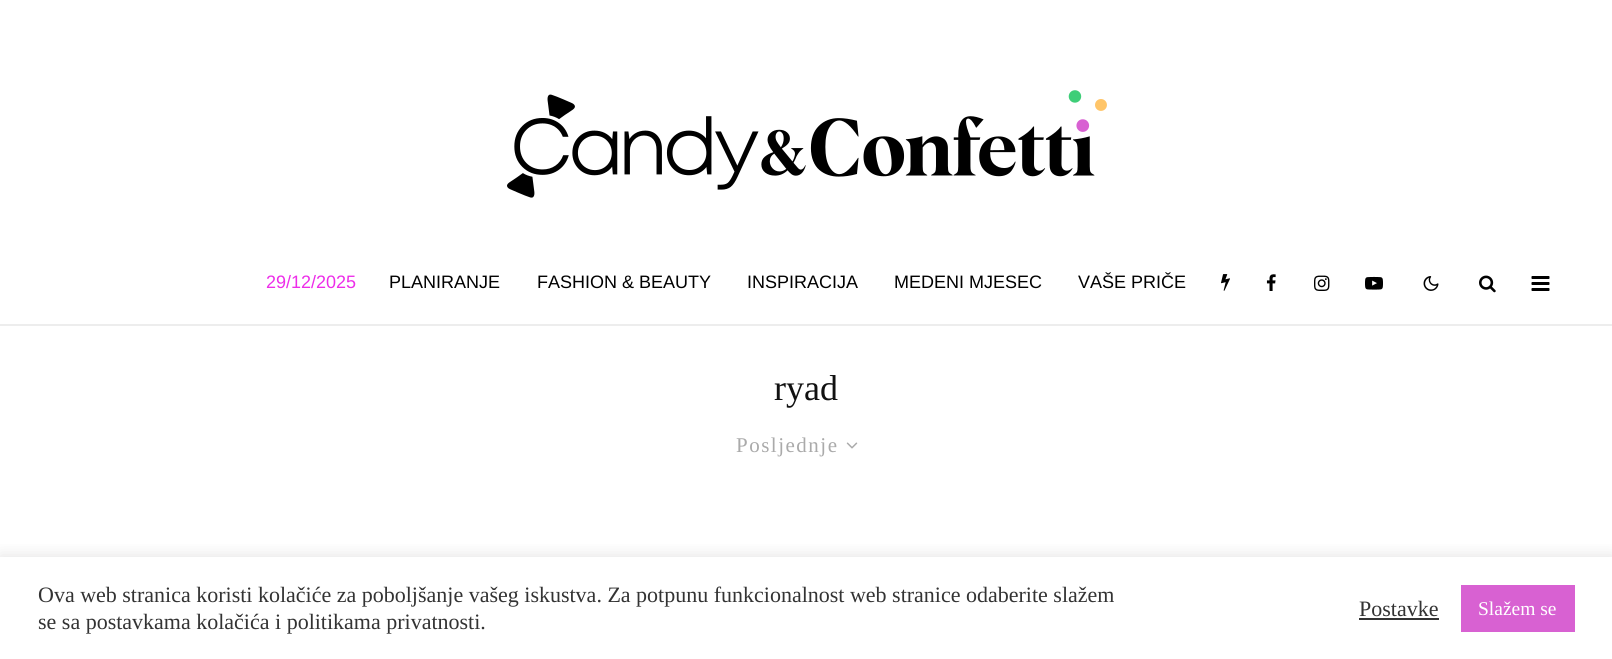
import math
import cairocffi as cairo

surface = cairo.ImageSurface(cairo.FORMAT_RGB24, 1612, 659)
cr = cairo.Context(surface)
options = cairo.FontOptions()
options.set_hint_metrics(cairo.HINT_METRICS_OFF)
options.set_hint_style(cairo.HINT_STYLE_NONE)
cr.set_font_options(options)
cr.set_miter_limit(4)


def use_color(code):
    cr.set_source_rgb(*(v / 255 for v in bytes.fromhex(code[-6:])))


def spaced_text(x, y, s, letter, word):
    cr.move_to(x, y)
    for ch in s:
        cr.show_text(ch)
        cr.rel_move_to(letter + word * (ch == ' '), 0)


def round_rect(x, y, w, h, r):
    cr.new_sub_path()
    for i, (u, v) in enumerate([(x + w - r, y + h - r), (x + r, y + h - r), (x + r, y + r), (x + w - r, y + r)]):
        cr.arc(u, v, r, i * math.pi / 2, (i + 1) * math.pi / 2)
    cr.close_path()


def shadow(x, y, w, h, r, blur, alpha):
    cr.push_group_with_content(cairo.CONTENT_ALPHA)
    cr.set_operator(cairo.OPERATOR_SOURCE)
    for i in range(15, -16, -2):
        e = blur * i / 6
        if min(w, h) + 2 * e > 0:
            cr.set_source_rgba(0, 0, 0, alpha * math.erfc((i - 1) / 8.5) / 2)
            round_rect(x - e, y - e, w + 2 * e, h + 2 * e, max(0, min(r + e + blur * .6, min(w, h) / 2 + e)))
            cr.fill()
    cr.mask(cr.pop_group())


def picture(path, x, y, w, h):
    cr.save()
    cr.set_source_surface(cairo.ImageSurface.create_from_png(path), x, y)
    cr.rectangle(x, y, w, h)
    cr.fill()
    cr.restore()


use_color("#ffffff")
cr.paint()
picture("img1.png", 507, 90, 600, 108)
use_color("#ededed")
cr.rectangle(0, 324, 1612, 2)
cr.fill()
cr.select_font_face("Liberation Sans")
cr.set_font_size(18)
use_color("#ed2de9")
cr.move_to(266, 288)
cr.show_text("29/12/2025")
use_color("#000000")
cr.move_to(389, 288)
cr.show_text("PLANIRANJE")
cr.move_to(537, 288)
cr.show_text("FASHION & BEAUTY")
cr.move_to(747, 288)
cr.show_text("INSPIRACIJA")
cr.move_to(894, 288)
cr.show_text("MEDENI MJESEC")
cr.move_to(1078, 288)
cr.show_text("VAŠE PRIČE")
picture("img2.png", 1221, 274, 9, 17)
picture("img3.png", 1266, 274, 10, 17)
picture("img4.png", 1314, 275, 16, 16)
picture("img5.png", 1365, 276, 18, 14)
picture("img6.png", 1423, 276, 16, 15)
picture("img7.png", 1479, 275, 17, 18)
picture("img8.png", 1531, 276, 19, 15)
cr.select_font_face("Liberation Serif")
cr.set_font_size(36)
use_color("#111111")
cr.move_to(774, 400)
cr.show_text("ryad")
cr.set_font_size(21)
use_color("#aaaaaa")
spaced_text(736, 452, "Posljednje", 1.5, 0)
picture("img9.png", 846, 442, 12, 7)
cr.save()
cr.rectangle(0, 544, 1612, 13)
cr.clip()
use_color("#acabab")
shadow(0, 555, 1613, 104, 0, 7.5, 0.3)
cr.restore()
cr.set_font_size(22)
use_color("#333333")
cr.move_to(38, 602)
cr.show_text("Ova web stranica koristi kolačiće za poboljšanje vašeg iskustva. Za potpunu funkcionalnost web stranice odaberite slažem")
cr.move_to(38, 629)
cr.show_text("se sa postavkama kolačića i politikama privatnosti.")
cr.move_to(1359, 616)
cr.show_text("Postavke")
cr.rectangle(1359, 618, 80, 2)
cr.fill()
use_color("#d861d2")
cr.rectangle(1461, 585, 114, 47)
cr.fill()
cr.set_font_size(19.5)
use_color("#ffffff")
cr.move_to(1478, 615)
cr.show_text("Slažem se")
surface.write_to_png("result.png")
